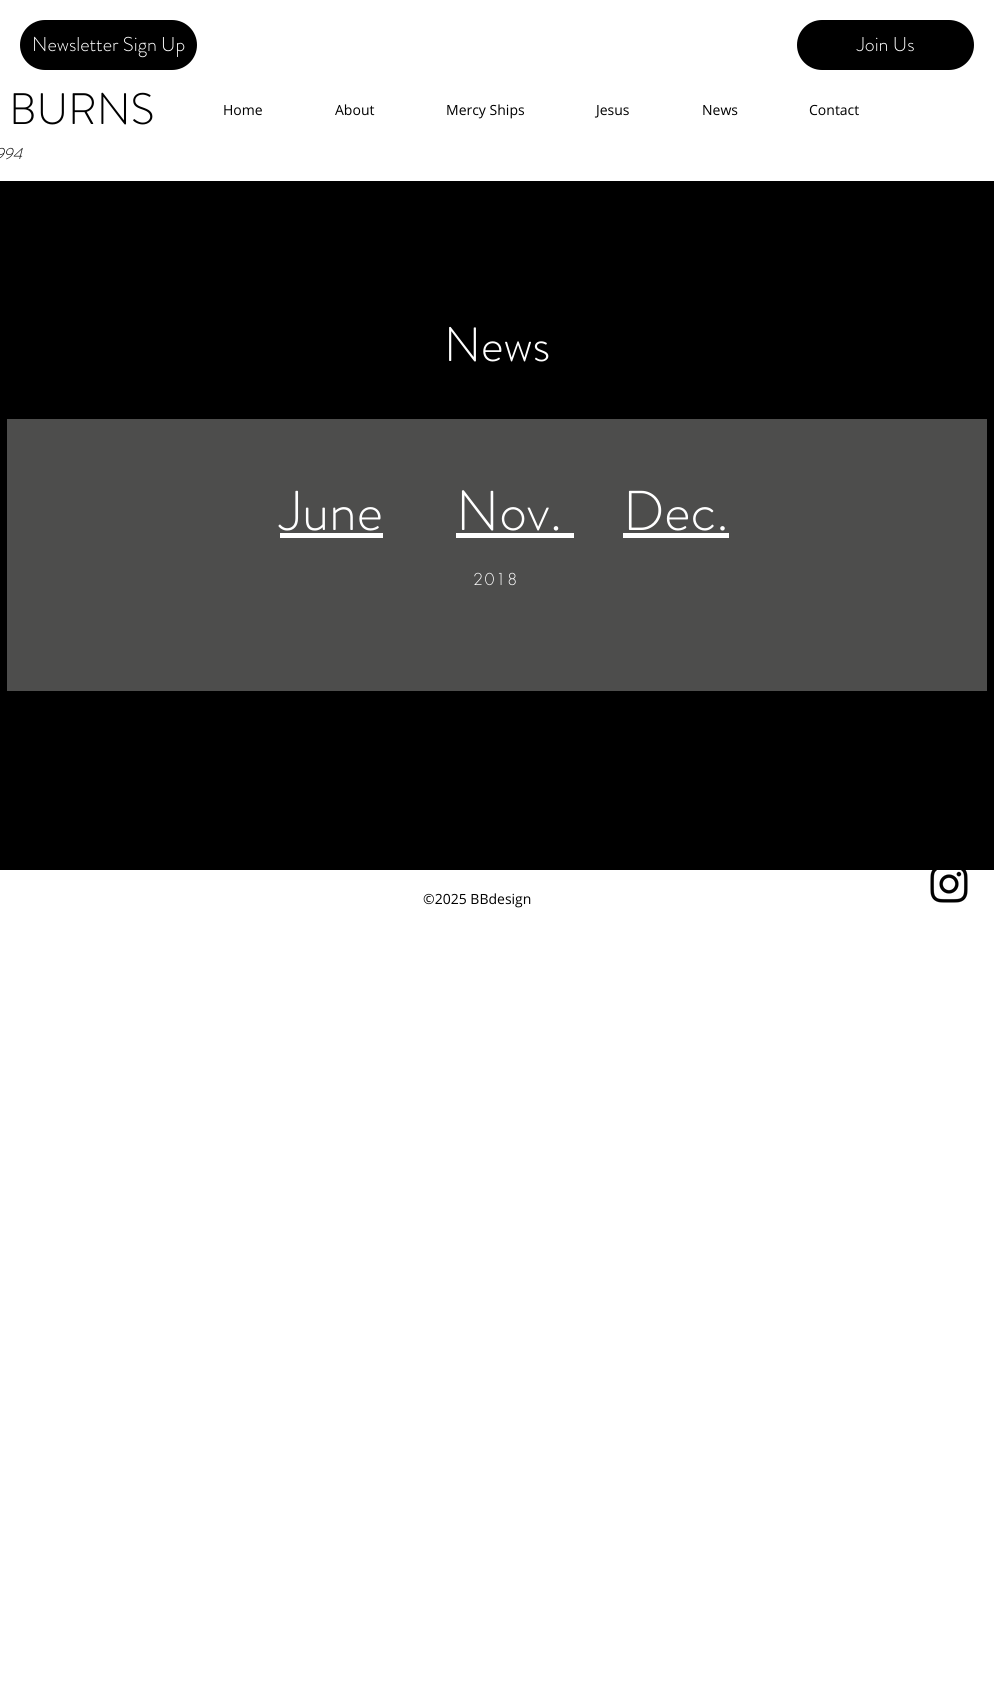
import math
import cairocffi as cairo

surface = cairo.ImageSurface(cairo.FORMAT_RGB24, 994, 1706)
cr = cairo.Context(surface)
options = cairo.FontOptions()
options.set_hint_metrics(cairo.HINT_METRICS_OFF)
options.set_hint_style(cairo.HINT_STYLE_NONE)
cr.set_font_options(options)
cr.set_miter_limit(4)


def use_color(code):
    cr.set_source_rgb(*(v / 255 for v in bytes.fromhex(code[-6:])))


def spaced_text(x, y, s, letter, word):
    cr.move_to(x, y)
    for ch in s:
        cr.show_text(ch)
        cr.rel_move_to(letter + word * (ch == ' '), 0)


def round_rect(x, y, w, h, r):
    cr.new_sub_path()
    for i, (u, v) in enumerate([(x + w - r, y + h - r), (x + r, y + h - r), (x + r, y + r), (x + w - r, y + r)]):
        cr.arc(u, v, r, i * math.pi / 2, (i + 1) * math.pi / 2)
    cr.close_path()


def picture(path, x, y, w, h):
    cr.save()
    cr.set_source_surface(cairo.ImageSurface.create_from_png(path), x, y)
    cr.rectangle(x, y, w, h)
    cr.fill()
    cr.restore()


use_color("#ffffff")
cr.paint()
use_color("#000000")
round_rect(20, 20, 177, 50, 25)
cr.fill()
cr.select_font_face("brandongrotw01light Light")
cr.set_font_size(20)
use_color("#ffffff")
cr.move_to(32, 51)
cr.show_text("Newsletter Sign Up")
use_color("#000000")
round_rect(797, 20, 177, 50, 25)
cr.fill()
use_color("#ffffff")
cr.move_to(857, 51)
cr.show_text("Join Us")
cr.set_font_size(44)
use_color("#000000")
cr.move_to(9, 124)
cr.show_text("BURNS")
cr.select_font_face("Open Sans")
cr.set_font_size(14)
cr.move_to(223, 115)
cr.show_text("Home")
cr.move_to(335, 115)
cr.show_text("About")
cr.move_to(446, 115)
cr.show_text("Mercy Ships")
cr.move_to(596, 115)
cr.show_text("Jesus")
cr.move_to(702, 115)
cr.show_text("News")
cr.move_to(809, 115)
cr.show_text("Contact")
cr.select_font_face("brandongrotw01light Light", cairo.FONT_SLANT_ITALIC)
cr.set_font_size(16)
cr.move_to(-5, 159)
cr.show_text("994")
cr.rectangle(0, 181, 994, 689)
cr.fill()
cr.select_font_face("brandongrotw01light Light")
cr.set_font_size(48)
use_color("#ffffff")
cr.move_to(444, 361)
cr.show_text("News")
use_color("#4d4d4c")
cr.rectangle(7, 419, 980, 272)
cr.fill()
cr.set_font_size(56)
use_color("#ffffff")
cr.move_to(280, 530)
cr.show_text("June")
cr.rectangle(280, 533, 103, 5)
cr.fill()
cr.move_to(456, 530)
cr.show_text("Nov.")
cr.rectangle(456, 533, 118, 5)
cr.fill()
cr.move_to(623, 530)
cr.show_text("Dec.")
cr.rectangle(623, 533, 106, 5)
cr.fill()
cr.select_font_face("futura Light")
cr.set_font_size(16)
spaced_text(473, 585, "2018", 1.5, 0)
cr.select_font_face("Open Sans")
cr.set_font_size(14)
use_color("#000000")
cr.move_to(423, 904)
cr.show_text("©2025 BBdesign")
picture("img1.png", 930, 870, 38, 33)
surface.write_to_png("result.png")
